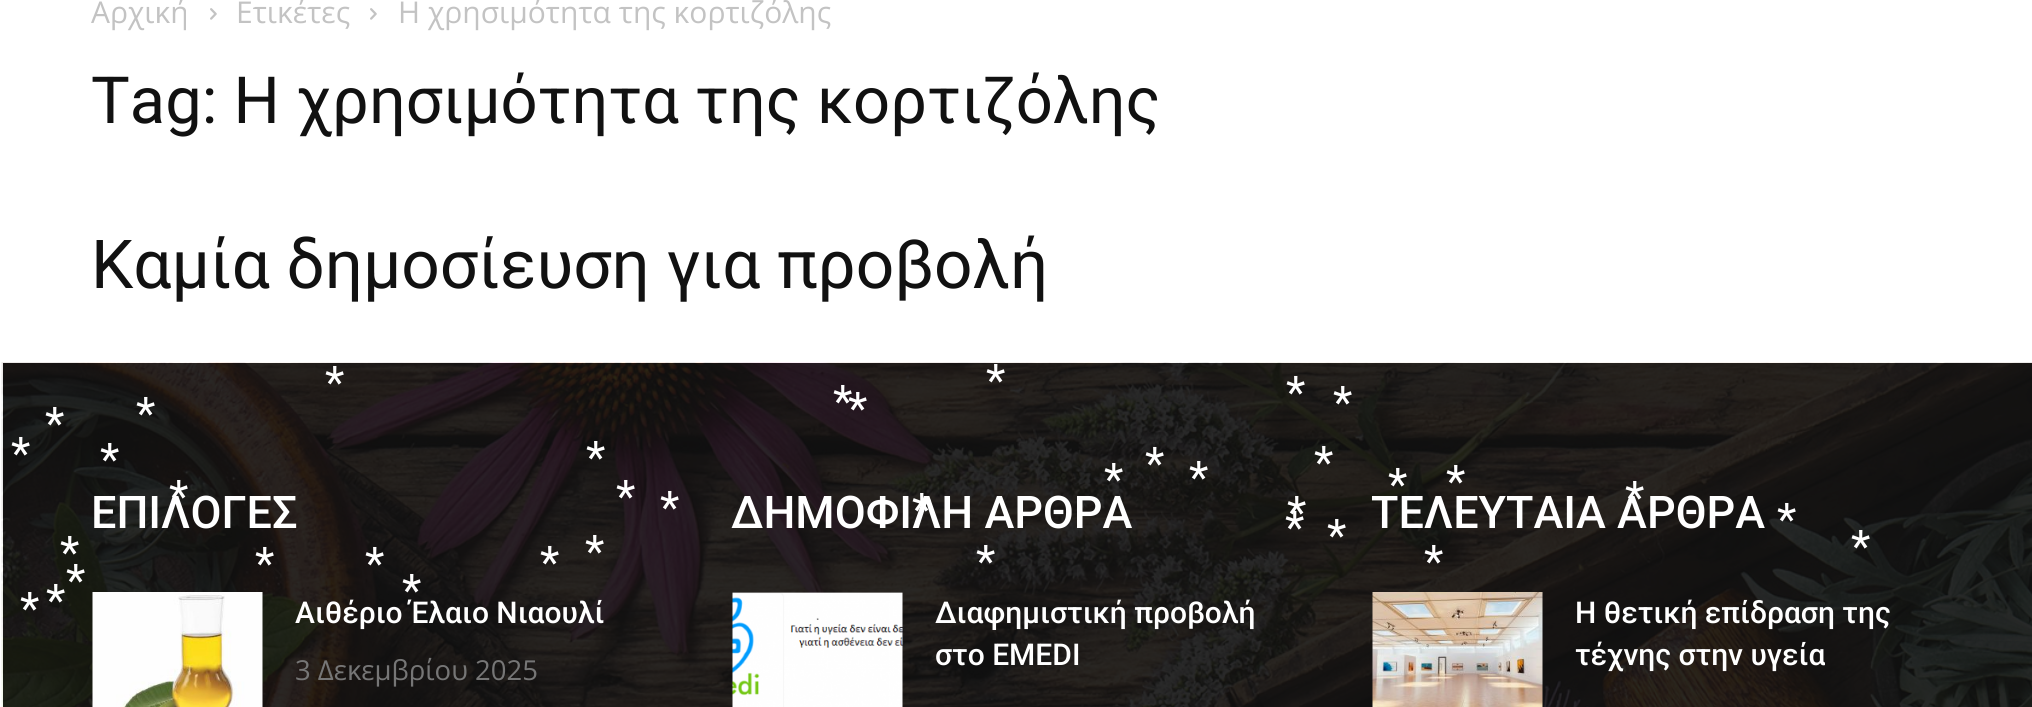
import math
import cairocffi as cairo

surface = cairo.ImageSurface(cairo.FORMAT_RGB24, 2032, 707)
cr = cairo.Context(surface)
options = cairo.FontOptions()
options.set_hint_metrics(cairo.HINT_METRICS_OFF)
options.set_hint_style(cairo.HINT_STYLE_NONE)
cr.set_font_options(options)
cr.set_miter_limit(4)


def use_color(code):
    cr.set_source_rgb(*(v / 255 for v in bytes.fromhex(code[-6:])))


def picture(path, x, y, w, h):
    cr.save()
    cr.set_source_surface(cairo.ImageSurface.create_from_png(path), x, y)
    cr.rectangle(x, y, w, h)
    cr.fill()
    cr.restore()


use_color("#ffffff")
cr.paint()
cr.select_font_face("Open Sans")
cr.set_font_size(30)
use_color("#c3c3c3")
cr.move_to(91, 23)
cr.show_text("Αρχική")
picture("img1.png", 210, 8, 7, 12)
cr.move_to(236, 23)
cr.show_text("Ετικέτες")
picture("img1.png", 370, 8, 7, 12)
cr.move_to(398, 23)
cr.show_text("Η χρησιμότητα της κορτιζόλης")
cr.select_font_face("Roboto")
cr.set_font_size(65)
use_color("#111111")
cr.move_to(91, 123)
cr.show_text("Tag: Η χρησιμότητα της κορτιζόλης")
cr.set_font_size(67.5)
cr.move_to(91, 288)
cr.show_text("Καμία δημοσίευση για προβολή")
cr.rectangle(3, 363, 2029, 344)
cr.fill()
picture("img2.png", 1, 362, 2031, 345)
cr.select_font_face("Roboto Medium")
cr.set_font_size(45)
use_color("#ffffff")
cr.move_to(91, 528)
cr.show_text("ΕΠΙΛΟΓΕΣ")
picture("img3.png", 92, 592, 171, 115)
cr.set_font_size(30)
cr.move_to(295, 623)
cr.show_text("Αιθέριο Έλαιο Νιαουλί")
cr.select_font_face("Open Sans")
cr.set_font_size(27.5)
use_color("#767676")
cr.move_to(295, 680)
cr.show_text("3 Δεκεμβρίου 2025")
cr.select_font_face("Roboto Medium")
cr.set_font_size(45)
use_color("#ffffff")
cr.move_to(731, 528)
cr.show_text("ΔΗΜΟΦΙΛΗ ΑΡΘΡΑ")
picture("img4.png", 732, 592, 171, 115)
cr.set_font_size(30)
cr.move_to(935, 623)
cr.show_text("Διαφημιστική προβολή")
cr.move_to(935, 665)
cr.show_text("στο EMEDI")
cr.set_font_size(45)
cr.move_to(1371, 528)
cr.show_text("ΤΕΛΕΥΤΑΙΑ ΑΡΘΡΑ")
picture("img5.png", 1372, 592, 171, 115)
cr.set_font_size(30)
cr.move_to(1575, 623)
cr.show_text("Η θετική επίδραση της")
cr.move_to(1575, 665)
cr.show_text("τέχνης στην υγεία")
cr.select_font_face("Roboto")
cr.set_font_size(45)
cr.move_to(45, 439)
cr.show_text("*")
cr.move_to(136, 429)
cr.show_text("*")
cr.move_to(325, 398)
cr.show_text("*")
cr.move_to(833, 417)
cr.show_text("*")
cr.move_to(848, 424)
cr.show_text("*")
cr.move_to(986, 396)
cr.show_text("*")
cr.move_to(1286, 408)
cr.show_text("*")
cr.move_to(1333, 418)
cr.show_text("*")
cr.move_to(11, 469)
cr.show_text("*")
cr.move_to(100, 475)
cr.show_text("*")
cr.move_to(586, 473)
cr.show_text("*")
cr.move_to(1145, 479)
cr.show_text("*")
cr.move_to(1314, 478)
cr.show_text("*")
cr.move_to(1104, 495)
cr.show_text("*")
cr.move_to(1189, 493)
cr.show_text("*")
cr.move_to(1388, 500)
cr.show_text("*")
cr.move_to(1446, 497)
cr.show_text("*")
cr.move_to(169, 512)
cr.show_text("*")
cr.move_to(616, 512)
cr.show_text("*")
cr.move_to(660, 523)
cr.show_text("*")
cr.move_to(912, 525)
cr.show_text("*")
cr.move_to(1287, 528)
cr.show_text("*")
cr.move_to(1625, 513)
cr.show_text("*")
cr.move_to(1777, 535)
cr.show_text("*")
cr.move_to(60, 568)
cr.show_text("*")
cr.move_to(255, 579)
cr.show_text("*")
cr.move_to(365, 579)
cr.show_text("*")
cr.move_to(540, 578)
cr.show_text("*")
cr.move_to(585, 567)
cr.show_text("*")
cr.move_to(976, 577)
cr.show_text("*")
cr.move_to(1285, 543)
cr.show_text("*")
cr.move_to(1327, 551)
cr.show_text("*")
cr.move_to(1424, 577)
cr.show_text("*")
cr.move_to(1851, 562)
cr.show_text("*")
cr.move_to(20, 624)
cr.show_text("*")
cr.move_to(46, 616)
cr.show_text("*")
cr.move_to(66, 596)
cr.show_text("*")
cr.move_to(402, 606)
cr.show_text("*")
surface.write_to_png("result.png")
